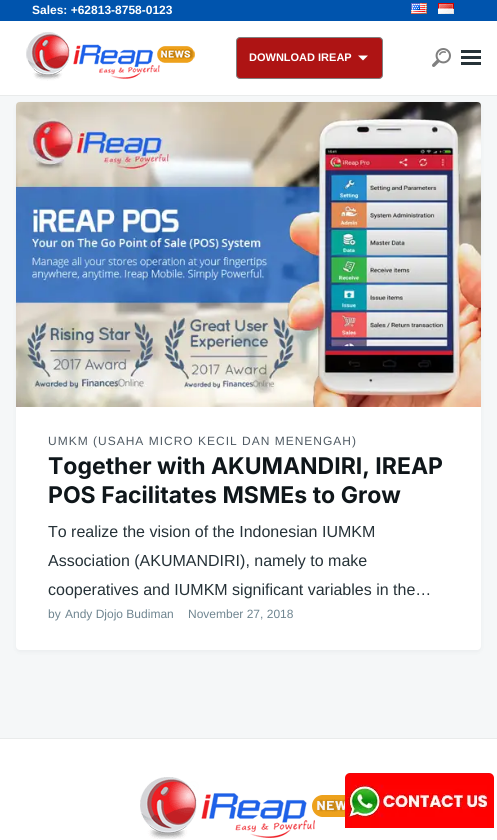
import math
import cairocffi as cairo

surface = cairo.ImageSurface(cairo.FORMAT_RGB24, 497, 840)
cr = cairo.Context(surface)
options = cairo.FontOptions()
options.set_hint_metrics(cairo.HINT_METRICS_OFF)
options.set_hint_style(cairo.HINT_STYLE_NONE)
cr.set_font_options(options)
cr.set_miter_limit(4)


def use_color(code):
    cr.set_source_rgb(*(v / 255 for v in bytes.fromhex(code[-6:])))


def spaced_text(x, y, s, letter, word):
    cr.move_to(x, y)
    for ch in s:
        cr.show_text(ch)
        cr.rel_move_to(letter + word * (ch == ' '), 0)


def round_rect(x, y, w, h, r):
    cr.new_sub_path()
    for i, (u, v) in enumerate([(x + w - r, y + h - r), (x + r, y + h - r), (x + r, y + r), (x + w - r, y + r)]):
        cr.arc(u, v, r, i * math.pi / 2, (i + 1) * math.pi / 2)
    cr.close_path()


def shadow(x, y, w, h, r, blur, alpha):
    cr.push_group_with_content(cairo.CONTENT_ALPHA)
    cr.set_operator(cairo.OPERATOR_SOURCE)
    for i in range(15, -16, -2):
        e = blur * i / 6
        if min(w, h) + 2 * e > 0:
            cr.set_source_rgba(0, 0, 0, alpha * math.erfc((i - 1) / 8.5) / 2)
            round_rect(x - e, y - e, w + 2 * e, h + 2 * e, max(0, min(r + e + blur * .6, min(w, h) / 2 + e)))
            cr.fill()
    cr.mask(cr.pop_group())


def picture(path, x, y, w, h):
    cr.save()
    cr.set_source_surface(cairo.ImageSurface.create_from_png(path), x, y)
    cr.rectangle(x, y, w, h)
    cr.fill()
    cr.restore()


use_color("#f5f7f8")
cr.paint()
use_color("#0054ad")
cr.rectangle(0, 0, 497, 21)
cr.fill()
cr.select_font_face("Liberation Sans", cairo.FONT_SLANT_NORMAL, cairo.FONT_WEIGHT_BOLD)
cr.set_font_size(12)
use_color("#ffffff")
cr.move_to(32, 14)
cr.show_text("Sales: +62813-8758-0123")
picture("img1.png", 411, 3, 16, 11)
picture("img2.png", 438, 3, 16, 11)
cr.rectangle(0, 21, 497, 74)
cr.fill()
use_color("#e9ebeb")
cr.rectangle(0, 95, 497, 1)
cr.fill()
picture("img3.png", 26, 32, 169, 49)
use_color("#ae1414")
round_rect(236.5, 37.5, 146, 41, 3.5)
cr.fill_preserve()
use_color("#808080")
cr.set_line_width(1)
cr.stroke()
cr.set_font_size(11)
use_color("#ffffff")
cr.move_to(249, 61)
cr.show_text("DOWNLOAD IREAP")
cr.new_path()
cr.move_to(358, 55.5)
cr.line_to(368, 55.5)
cr.line_to(363, 60.5)
cr.close_path()
cr.fill()
picture("img4.png", 432, 48, 19, 19)
use_color("#263238")
cr.rectangle(461, 50, 20, 3)
cr.fill()
cr.rectangle(461, 56, 20, 3)
cr.fill()
cr.rectangle(461, 62, 20, 3)
cr.fill()
use_color("#263238")
shadow(16, 104, 465, 548, 4, 2, 0.05)
use_color("#ffffff")
round_rect(16, 102, 465, 548, 4)
cr.fill()
picture("img5.png", 16, 102, 465, 305)
cr.select_font_face("Liberation Sans")
cr.set_font_size(12)
use_color("#4f5a63")
spaced_text(48, 445, "UMKM (USAHA MICRO KECIL DAN MENENGAH)", 1, 0)
cr.select_font_face("Inter", cairo.FONT_SLANT_NORMAL, cairo.FONT_WEIGHT_BOLD)
cr.set_font_size(23)
use_color("#0f161a")
cr.move_to(48, 474)
cr.show_text("Together with AKUMANDIRI, IREAP")
cr.move_to(48, 503)
cr.show_text("POS Facilitates MSMEs to Grow")
cr.select_font_face("Liberation Sans")
cr.set_font_size(16)
use_color("#263238")
cr.move_to(48, 537)
cr.show_text("To realize the vision of the Indonesian IUMKM")
cr.move_to(48, 566)
cr.show_text("Association (AKUMANDIRI), namely to make")
cr.move_to(48, 595)
cr.show_text("cooperatives and IUMKM significant variables in the…")
cr.set_font_size(12)
use_color("#6f8590")
cr.move_to(48, 618)
cr.show_text("by")
cr.move_to(65, 618)
cr.show_text("Andy Djojo Budiman")
cr.move_to(188, 618)
cr.show_text("November 27, 2018")
use_color("#ffffff")
cr.rectangle(0, 739, 497, 101)
cr.fill()
use_color("#e9ebeb")
cr.rectangle(0, 738, 497, 1)
cr.fill()
picture("img6.png", 140, 777, 205, 62)
picture("img7.png", 345, 773, 149, 55)
surface.write_to_png("result.png")
